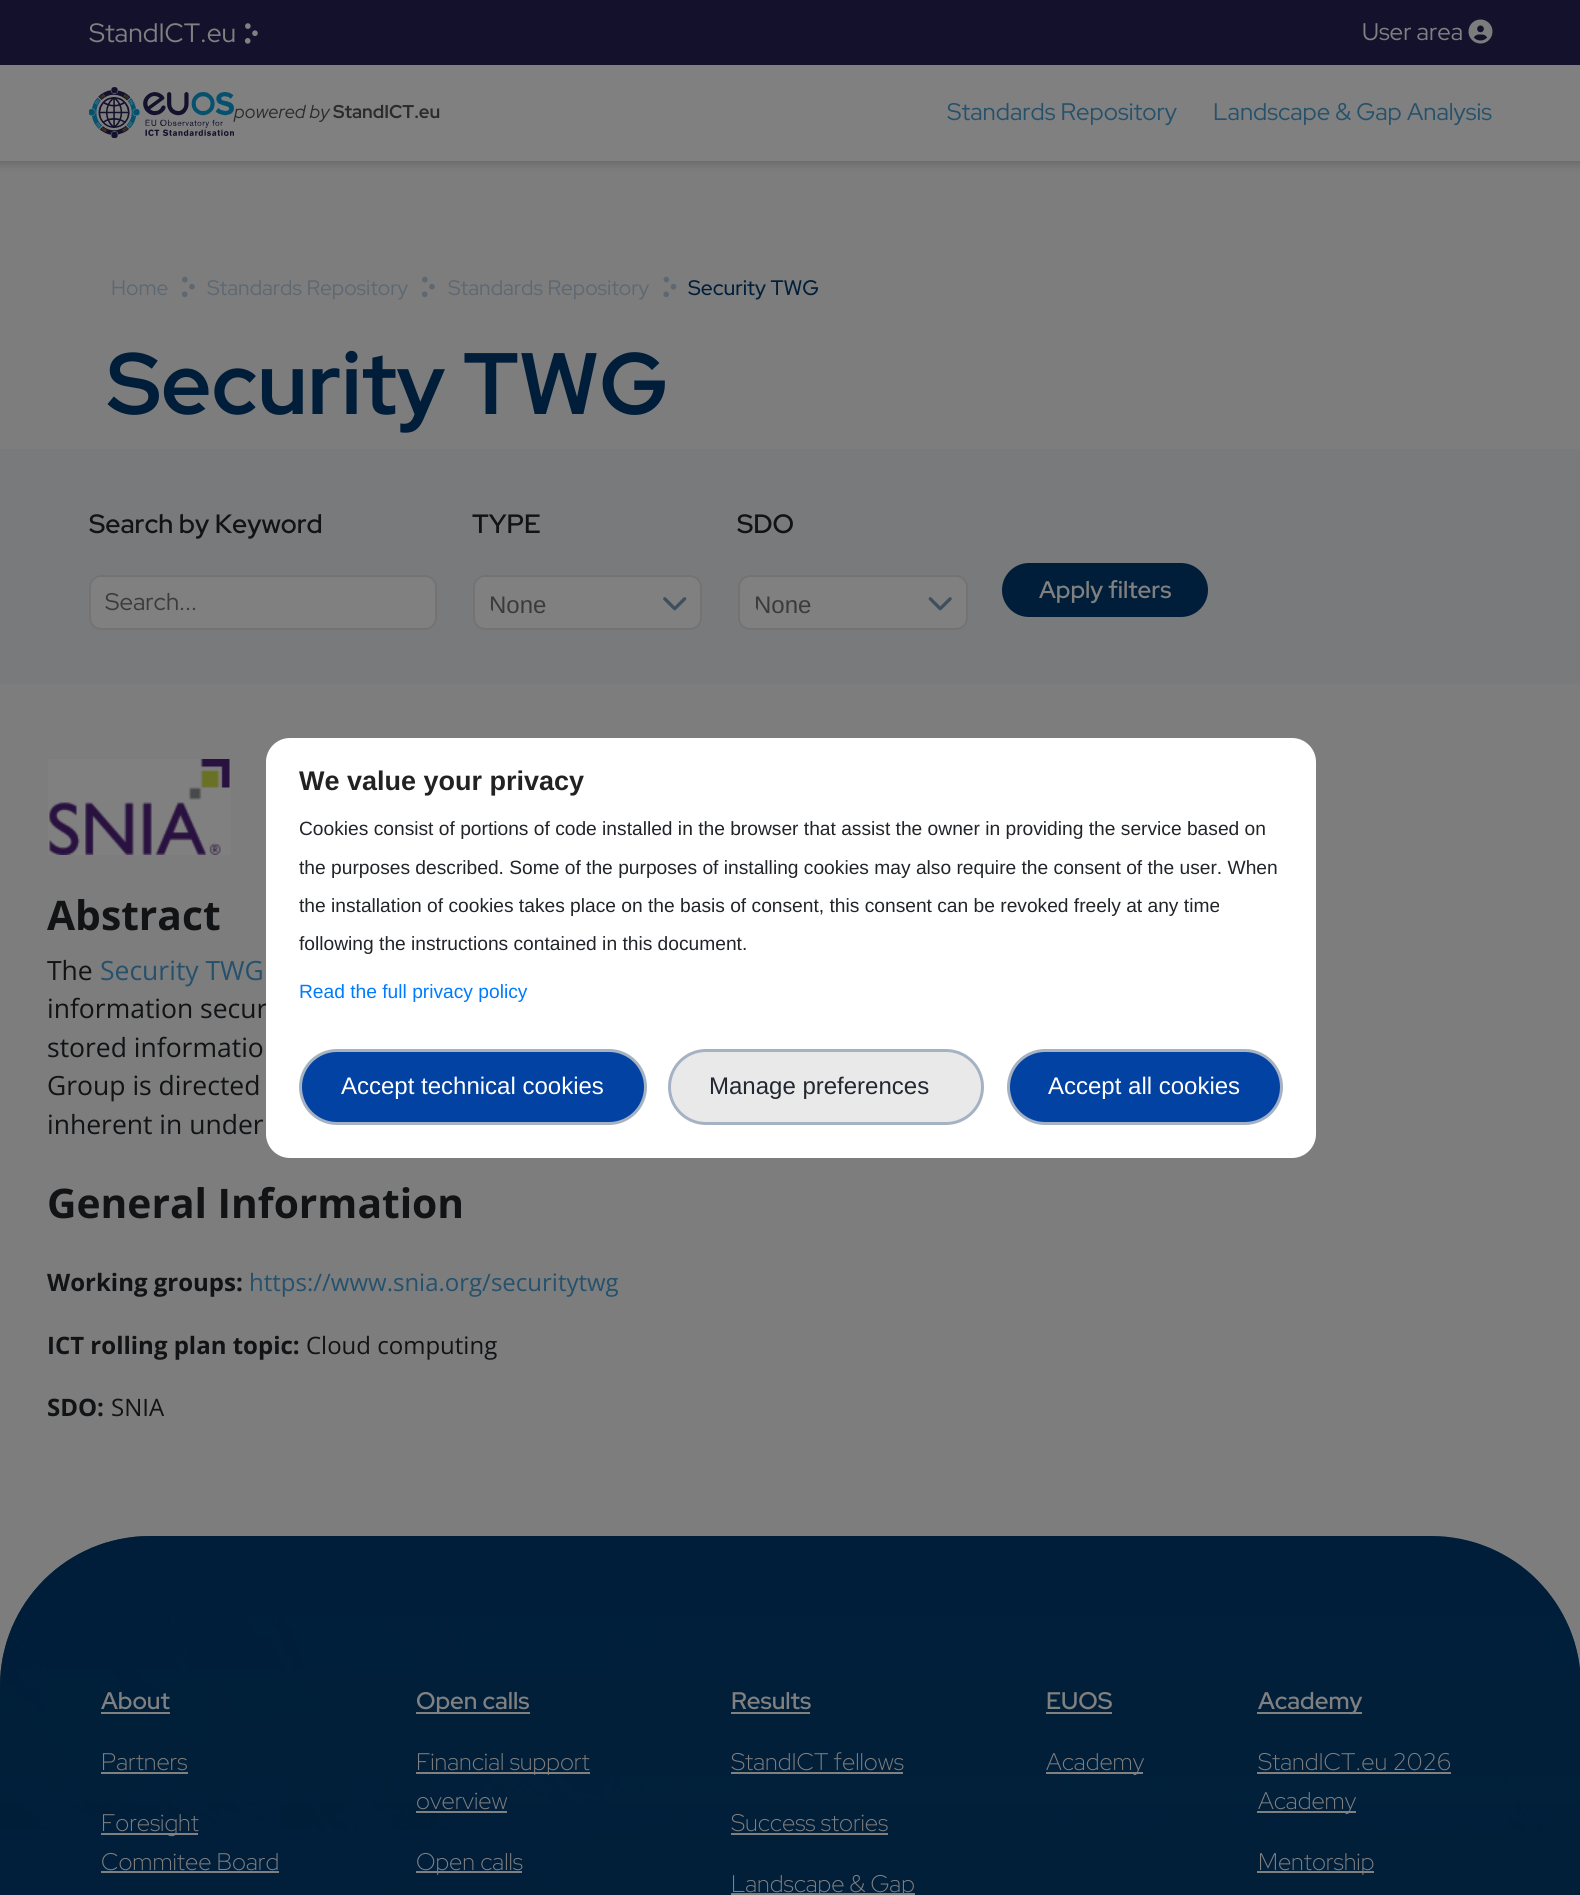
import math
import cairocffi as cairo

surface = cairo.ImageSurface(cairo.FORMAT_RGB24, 1580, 1895)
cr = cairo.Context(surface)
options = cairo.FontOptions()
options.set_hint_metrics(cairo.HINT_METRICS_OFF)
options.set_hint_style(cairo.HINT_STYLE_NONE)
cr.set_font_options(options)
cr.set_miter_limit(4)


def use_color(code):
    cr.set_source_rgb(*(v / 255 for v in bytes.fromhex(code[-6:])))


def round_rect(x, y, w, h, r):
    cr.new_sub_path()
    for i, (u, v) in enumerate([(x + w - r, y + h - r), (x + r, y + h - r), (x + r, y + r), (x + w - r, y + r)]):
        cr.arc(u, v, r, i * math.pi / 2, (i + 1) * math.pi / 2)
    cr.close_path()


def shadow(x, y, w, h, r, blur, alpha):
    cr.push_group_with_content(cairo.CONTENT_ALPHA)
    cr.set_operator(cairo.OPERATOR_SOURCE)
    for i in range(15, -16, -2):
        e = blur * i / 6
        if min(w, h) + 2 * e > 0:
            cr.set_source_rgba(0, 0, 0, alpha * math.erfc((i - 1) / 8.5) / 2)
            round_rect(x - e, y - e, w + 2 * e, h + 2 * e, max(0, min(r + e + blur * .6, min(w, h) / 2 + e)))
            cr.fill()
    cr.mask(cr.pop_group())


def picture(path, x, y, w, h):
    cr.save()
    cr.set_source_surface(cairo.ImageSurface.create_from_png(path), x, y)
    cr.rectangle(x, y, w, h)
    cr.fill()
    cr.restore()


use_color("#7d7d7d")
cr.paint()
use_color("#000000")
shadow(-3, -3, 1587, 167, 0, 4.5, 0.17)
use_color("#808080")
cr.rectangle(0, 65, 1580, 96)
cr.fill()
use_color("#14112d")
cr.rectangle(0, 0, 1580, 65)
cr.fill()
cr.select_font_face("Red Hat Display")
cr.set_font_size(26.5)
use_color("#808080")
cr.move_to(89, 42)
cr.show_text("StandICT.eu")
picture("img1.png", 244, 23, 14, 21)
cr.set_font_size(24)
cr.move_to(1362, 40)
cr.show_text("User area")
picture("img2.png", 1468, 19, 25, 25)
picture("img3.png", 89, 87, 145, 51)
cr.select_font_face("Red Hat Display", cairo.FONT_SLANT_ITALIC)
cr.set_font_size(18.5)
use_color("#2b2b2b")
cr.move_to(234, 118)
cr.show_text("powered by")
cr.select_font_face("Red Hat Display", cairo.FONT_SLANT_NORMAL, cairo.FONT_WEIGHT_BOLD)
cr.move_to(333, 118)
cr.show_text("StandICT.eu")
cr.select_font_face("Red Hat Display")
cr.set_font_size(24)
use_color("#25516c")
cr.move_to(947, 120)
cr.show_text("Standards Repository")
cr.move_to(1213, 120)
cr.show_text("Landscape & Gap Analysis")
cr.set_font_size(21)
use_color("#5d6872")
cr.move_to(111, 295)
cr.show_text("Home")
picture("img4.png", 181, 276, 14, 22)
cr.move_to(207, 295)
cr.show_text("Standards Repository")
picture("img4.png", 421, 276, 14, 22)
cr.move_to(448, 295)
cr.show_text("Standards Repository")
picture("img5.png", 663, 276, 14, 22)
cr.select_font_face("Red Hat Display Medium")
use_color("#001e39")
cr.move_to(688, 295)
cr.show_text("Security TWG")
cr.select_font_face("Red Hat Display", cairo.FONT_SLANT_NORMAL, cairo.FONT_WEIGHT_BOLD)
cr.set_font_size(87)
cr.move_to(107, 414)
cr.show_text("Security TWG")
use_color("#787a7c")
cr.rectangle(0, 449, 1580, 235)
cr.fill()
cr.select_font_face("Red Hat Display SemiBold")
cr.set_font_size(26.5)
use_color("#111315")
cr.move_to(89, 533)
cr.show_text("Search by Keyword")
use_color("#808080")
round_rect(89, 575, 348, 55, 12)
cr.fill()
round_rect(90, 576, 346, 53, 11)
cr.set_source_rgba(0, 0, 0, 0.1)
cr.stroke()
cr.select_font_face("Red Hat Display")
cr.set_font_size(24)
use_color("#3b3b3b")
cr.move_to(105, 610)
cr.show_text("Search...")
cr.select_font_face("Red Hat Display SemiBold")
cr.set_font_size(26.5)
use_color("#111315")
cr.move_to(472, 533)
cr.show_text("TYPE")
use_color("#808080")
round_rect(473, 575, 229, 55, 12)
cr.fill()
round_rect(474, 576, 227, 53, 11)
cr.set_source_rgba(0, 0, 0, 0.1)
cr.stroke()
cr.save()
round_rect(489, 587, 227, 27, 11)
cr.clip()
cr.select_font_face("Liberation Sans")
cr.set_font_size(24)
use_color("#3b3b3b")
cr.move_to(489, 613)
cr.show_text("None")
cr.restore()
picture("img6.png", 663, 597, 24, 14)
use_color("#111315")
cr.move_to(737, 533)
cr.show_text("SDO")
use_color("#808080")
round_rect(738, 575, 230, 55, 12)
cr.fill()
round_rect(739, 576, 228, 53, 11)
cr.set_source_rgba(0, 0, 0, 0.1)
cr.stroke()
cr.save()
round_rect(755, 587, 226, 27, 11)
cr.clip()
cr.select_font_face("Liberation Sans")
cr.set_font_size(24)
use_color("#3b3b3b")
cr.move_to(754, 613)
cr.show_text("None")
cr.restore()
picture("img7.png", 928, 597, 24, 14)
use_color("#001e39")
round_rect(1002, 563, 206, 54, 27)
cr.fill()
cr.set_font_size(24)
use_color("#808080")
cr.move_to(1039, 598)
cr.show_text("Apply filters")
picture("img8.png", 48, 759, 183, 96)
cr.select_font_face("Open Sans", cairo.FONT_SLANT_NORMAL, cairo.FONT_WEIGHT_BOLD)
cr.set_font_size(40.75)
use_color("#111315")
cr.move_to(47, 930)
cr.show_text("Abstract")
cr.select_font_face("Open Sans")
cr.set_font_size(26.5)
cr.move_to(47, 980)
cr.show_text("The")
use_color("#25516c")
cr.move_to(100, 980)
cr.show_text("Security TWG")
use_color("#111315")
cr.move_to(47, 1018)
cr.show_text("information secur")
cr.move_to(47, 1057)
cr.show_text("stored informatio")
cr.move_to(47, 1095)
cr.show_text("Group is directed")
cr.move_to(47, 1134)
cr.show_text("inherent in under")
cr.select_font_face("Open Sans", cairo.FONT_SLANT_NORMAL, cairo.FONT_WEIGHT_BOLD)
cr.set_font_size(40.75)
cr.move_to(47, 1218)
cr.show_text("General Information")
cr.set_font_size(24)
cr.move_to(47, 1291)
cr.show_text("Working groups:")
cr.select_font_face("Open Sans")
use_color("#25516c")
cr.move_to(249, 1291)
cr.show_text("https://www.snia.org/securitytwg")
cr.select_font_face("Open Sans", cairo.FONT_SLANT_NORMAL, cairo.FONT_WEIGHT_BOLD)
use_color("#111315")
cr.move_to(47, 1354)
cr.show_text("ICT rolling plan topic:")
cr.select_font_face("Open Sans")
cr.move_to(306, 1354)
cr.show_text("Cloud computing")
cr.select_font_face("Open Sans", cairo.FONT_SLANT_NORMAL, cairo.FONT_WEIGHT_BOLD)
cr.move_to(47, 1416)
cr.show_text("SDO:")
cr.select_font_face("Open Sans")
cr.move_to(111, 1416)
cr.show_text("SNIA")
picture("img9.png", 0, 1536, 1580, 359)
gradient = cairo.LinearGradient(791, 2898, 791, 1536)
gradient.add_color_stop_rgba(0, 0, 0.118, 0.224, 0.5)
gradient.add_color_stop_rgba(0.5, 0, 0.118, 0.224, 0.95)
gradient.add_color_stop_rgba(1, 0, 0.118, 0.224, 1)
cr.set_source(gradient)
cr.new_path()
cr.move_to(150, 1536)
cr.line_to(1431, 1536)
cr.curve_to(1514, 1536, 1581, 1603, 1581, 1686)
cr.line_to(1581, 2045)
cr.line_to(0, 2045)
cr.line_to(0, 1686)
cr.curve_to(0, 1603, 67, 1536, 150, 1536)
cr.close_path()
cr.fill()
cr.select_font_face("Red Hat Display SemiBold")
use_color("#808080")
cr.move_to(101, 1709)
cr.show_text("About")
cr.rectangle(101, 1712, 69, 2)
cr.fill()
cr.select_font_face("Red Hat Display Light")
cr.move_to(101, 1770)
cr.show_text("Partners")
cr.rectangle(101, 1772, 87, 2)
cr.fill()
cr.rectangle(101, 1833, 97, 2)
cr.fill()
cr.move_to(101, 1831)
cr.show_text("Foresight")
cr.move_to(101, 1870)
cr.show_text("Commitee Board")
cr.rectangle(101, 1871, 178, 2)
cr.fill()
cr.rectangle(416, 1712, 114, 2)
cr.fill()
cr.select_font_face("Red Hat Display SemiBold")
cr.move_to(416, 1709)
cr.show_text("Open calls")
cr.rectangle(416, 1772, 174, 2)
cr.fill()
cr.select_font_face("Red Hat Display Light")
cr.move_to(416, 1770)
cr.show_text("Financial support")
cr.move_to(416, 1809)
cr.show_text("overview")
cr.rectangle(416, 1811, 91, 2)
cr.fill()
cr.rectangle(416, 1871, 106, 2)
cr.fill()
cr.move_to(416, 1870)
cr.show_text("Open calls")
cr.select_font_face("Red Hat Display SemiBold")
cr.move_to(731, 1709)
cr.show_text("Results")
cr.rectangle(731, 1712, 79, 2)
cr.fill()
cr.select_font_face("Red Hat Display Light")
cr.move_to(731, 1770)
cr.show_text("StandICT fellows")
cr.rectangle(731, 1772, 172, 2)
cr.fill()
cr.move_to(731, 1831)
cr.show_text("Success stories")
cr.rectangle(731, 1833, 157, 2)
cr.fill()
cr.rectangle(731, 1893, 184, 2)
cr.fill()
cr.move_to(731, 1892)
cr.show_text("Landscape & Gap")
cr.select_font_face("Red Hat Display SemiBold")
cr.move_to(1046, 1709)
cr.show_text("EUOS")
cr.rectangle(1046, 1712, 66, 2)
cr.fill()
cr.rectangle(1046, 1772, 97, 2)
cr.fill()
cr.select_font_face("Red Hat Display Light")
cr.move_to(1046, 1770)
cr.show_text("Academy")
cr.rectangle(1257, 1712, 105, 2)
cr.fill()
cr.select_font_face("Red Hat Display SemiBold")
cr.move_to(1258, 1709)
cr.show_text("Academy")
cr.select_font_face("Red Hat Display Light")
cr.move_to(1258, 1770)
cr.show_text("StandICT.eu 2026")
cr.rectangle(1257, 1772, 194, 2)
cr.fill()
cr.rectangle(1257, 1811, 99, 2)
cr.fill()
cr.move_to(1258, 1809)
cr.show_text("Academy")
cr.rectangle(1257, 1871, 117, 2)
cr.fill()
cr.move_to(1258, 1870)
cr.show_text("Mentorship")
use_color("#ffffff")
round_rect(266, 738, 1050, 420, 24)
cr.fill()
cr.select_font_face("Liberation Sans", cairo.FONT_SLANT_NORMAL, cairo.FONT_WEIGHT_BOLD)
cr.set_font_size(27)
use_color("#222222")
cr.move_to(299, 790)
cr.show_text("We value your privacy")
cr.select_font_face("Liberation Sans")
cr.set_font_size(19.2)
use_color("#212529")
cr.move_to(299, 835)
cr.show_text("Cookies consist of portions of code installed in the browser that assist the owner in providing the service based on")
cr.move_to(299, 874)
cr.show_text("the purposes described. Some of the purposes of installing cookies may also require the consent of the user. When")
cr.move_to(299, 912)
cr.show_text("the installation of cookies takes place on the basis of consent, this consent can be revoked freely at any time")
cr.move_to(299, 950)
cr.show_text("following the instructions contained in this document.")
use_color("#007bff")
cr.move_to(299, 998)
cr.show_text("Read the full privacy policy")
use_color("#0242a2")
round_rect(300.5, 1050.5, 345, 73, 36.5)
cr.fill_preserve()
use_color("#a5b2c3")
cr.set_line_width(3)
cr.stroke()
cr.set_font_size(24)
use_color("#ffffff")
cr.move_to(341, 1094)
cr.show_text("Accept technical cookies")
use_color("#e9e9ea")
round_rect(669.5, 1050.5, 313, 73, 36.5)
cr.fill_preserve()
use_color("#a5b2c3")
cr.stroke()
use_color("#222831")
cr.move_to(709, 1094)
cr.show_text("Manage preferences")
use_color("#0242a2")
round_rect(1008.5, 1050.5, 273, 73, 36.5)
cr.fill_preserve()
use_color("#a5b2c3")
cr.stroke()
use_color("#ffffff")
cr.move_to(1048, 1094)
cr.show_text("Accept all cookies")
surface.write_to_png("result.png")
